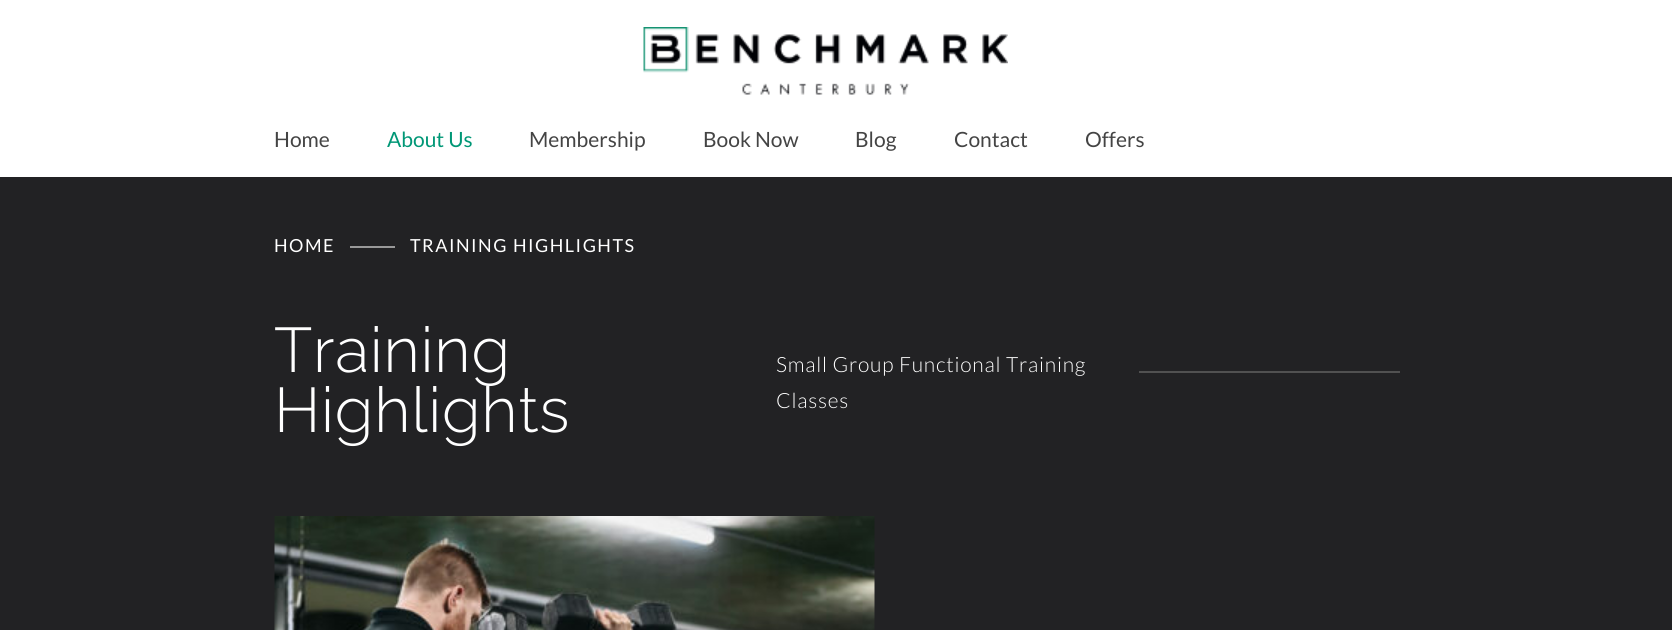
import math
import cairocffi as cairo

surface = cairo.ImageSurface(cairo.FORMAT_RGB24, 1672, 630)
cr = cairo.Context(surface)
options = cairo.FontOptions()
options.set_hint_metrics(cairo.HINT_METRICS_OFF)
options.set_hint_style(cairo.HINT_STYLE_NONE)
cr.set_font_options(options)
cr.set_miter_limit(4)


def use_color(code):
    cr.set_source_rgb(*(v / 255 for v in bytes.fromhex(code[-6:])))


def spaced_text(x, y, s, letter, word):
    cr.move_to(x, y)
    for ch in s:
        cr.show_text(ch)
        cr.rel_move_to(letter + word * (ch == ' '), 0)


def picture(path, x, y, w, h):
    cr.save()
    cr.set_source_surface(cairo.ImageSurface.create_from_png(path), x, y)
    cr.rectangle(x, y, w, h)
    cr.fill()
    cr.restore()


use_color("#222224")
cr.paint()
use_color("#ffffff")
cr.rectangle(0, 0, 1672, 177)
cr.fill()
picture("img1.png", 643, 27, 365, 68)
cr.select_font_face("Lato")
cr.set_font_size(21)
use_color("#444444")
cr.move_to(274, 147)
cr.show_text("Home")
use_color("#009776")
cr.move_to(387, 147)
cr.show_text("About Us")
use_color("#444444")
cr.move_to(529, 147)
cr.show_text("Membership")
cr.move_to(703, 147)
cr.show_text("Book Now")
cr.move_to(855, 147)
cr.show_text("Blog")
cr.move_to(954, 147)
cr.show_text("Contact")
cr.move_to(1085, 147)
cr.show_text("Offers")
cr.set_font_size(18)
use_color("#ffffff")
spaced_text(274, 252, "HOME", 1.5, 0)
use_color("#999999")
cr.rectangle(350, 246, 45, 2)
cr.fill()
use_color("#ffffff")
spaced_text(410, 252, "TRAINING HIGHLIGHTS", 1.5, 0)
cr.select_font_face("Raleway Light")
cr.set_font_size(63)
spaced_text(274, 372, "Training", 0.75, 0)
spaced_text(274, 432, "Highlights", 0.75, 0)
cr.select_font_face("Lato Light")
cr.set_font_size(21)
spaced_text(776, 372, "Small Group Functional Training", 0.75, 0)
spaced_text(776, 408, "Classes", 0.75, 0)
use_color("#515151")
cr.rectangle(1139, 371, 261, 2)
cr.fill()
picture("img2.png", 274, 516, 601, 114)
surface.write_to_png("result.png")
